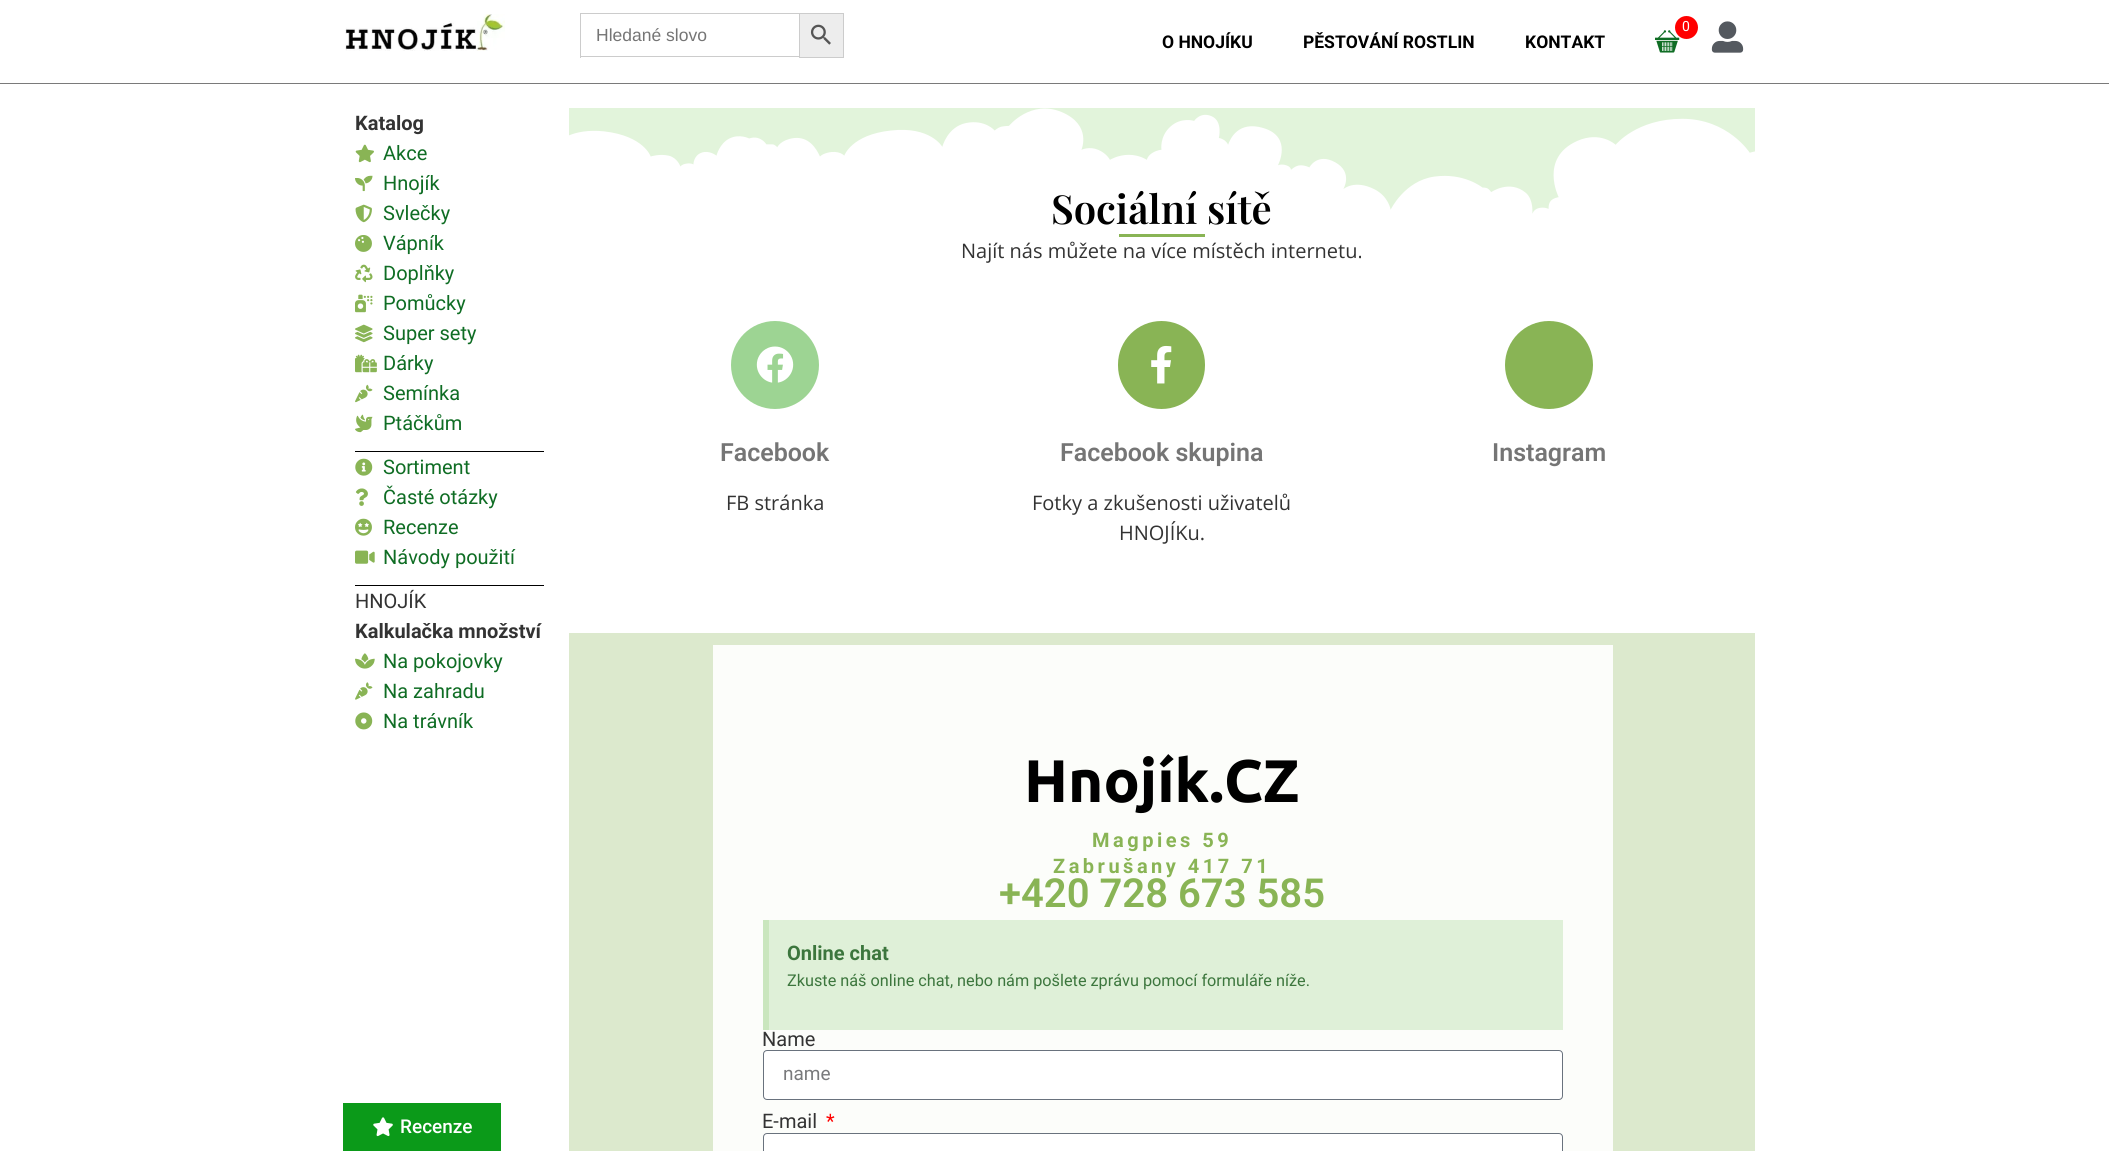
import math
import cairocffi as cairo

surface = cairo.ImageSurface(cairo.FORMAT_RGB24, 2109, 1151)
cr = cairo.Context(surface)
options = cairo.FontOptions()
options.set_hint_metrics(cairo.HINT_METRICS_OFF)
options.set_hint_style(cairo.HINT_STYLE_NONE)
cr.set_font_options(options)
cr.set_miter_limit(4)


def use_color(code):
    cr.set_source_rgb(*(v / 255 for v in bytes.fromhex(code[-6:])))


def spaced_text(x, y, s, letter, word):
    cr.move_to(x, y)
    for ch in s:
        cr.show_text(ch)
        cr.rel_move_to(letter + word * (ch == ' '), 0)


def round_rect(x, y, w, h, r):
    cr.new_sub_path()
    for i, (u, v) in enumerate([(x + w - r, y + h - r), (x + r, y + h - r), (x + r, y + r), (x + w - r, y + r)]):
        cr.arc(u, v, r, i * math.pi / 2, (i + 1) * math.pi / 2)
    cr.close_path()


def picture(path, x, y, w, h):
    cr.save()
    cr.set_source_surface(cairo.ImageSurface.create_from_png(path), x, y)
    cr.rectangle(x, y, w, h)
    cr.fill()
    cr.restore()


use_color("#ffffff")
cr.paint()
use_color("#7a7a7a")
cr.rectangle(0, 83, 2109, 1)
cr.fill()
picture("img1.png", 345, 14, 160, 37)
use_color("#cccccc")
cr.rectangle(580, 13, 219, 1)
cr.fill()
cr.rectangle(580, 56, 219, 1)
cr.fill()
cr.rectangle(580, 13, 1, 45)
cr.fill()
cr.select_font_face("Liberation Sans")
cr.set_font_size(17.5)
use_color("#757575")
cr.move_to(596, 41)
cr.show_text("Hledané slovo")
use_color("#ededed")
cr.rectangle(799.5, 13.5, 44, 44)
cr.fill_preserve()
use_color("#cccccc")
cr.set_line_width(1)
cr.stroke()
picture("img2.png", 810, 24, 21, 21)
picture("img3.png", 1655, 30, 25, 23)
use_color("#ff0000")
cr.arc(1686.5, 27.5, 11.5, 0, 2 * math.pi)
cr.fill()
cr.select_font_face("Roboto")
cr.set_font_size(14)
use_color("#ffffff")
cr.move_to(1682, 31)
cr.show_text("0")
cr.select_font_face("Roboto", cairo.FONT_SLANT_NORMAL, cairo.FONT_WEIGHT_BOLD)
cr.set_font_size(17.5)
use_color("#000000")
cr.move_to(1162, 48)
cr.show_text("O HNOJÍKU")
cr.move_to(1303, 48)
cr.show_text("PĚSTOVÁNÍ ROSTLIN")
cr.move_to(1525, 48)
cr.show_text("KONTAKT")
picture("img4.png", 1711, 21, 33, 32)
cr.set_font_size(20)
use_color("#333333")
cr.move_to(355, 130)
cr.show_text("Katalog")
picture("img5.png", 355, 144, 19, 19)
cr.select_font_face("Roboto")
use_color("#0f6d24")
cr.move_to(383, 160)
cr.show_text("Akce")
picture("img6.png", 355, 175, 18, 17)
cr.move_to(383, 190)
cr.show_text("Hnojík")
picture("img7.png", 355, 204, 17, 19)
cr.move_to(383, 220)
cr.show_text("Svlečky")
picture("img8.png", 355, 235, 17, 17)
cr.move_to(383, 250)
cr.show_text("Vápník")
picture("img9.png", 355, 264, 18, 19)
cr.move_to(383, 280)
cr.show_text("Doplňky")
picture("img10.png", 355, 294, 18, 19)
cr.move_to(383, 310)
cr.show_text("Pomůcky")
picture("img11.png", 355, 324, 18, 19)
cr.move_to(383, 340)
cr.show_text("Super sety")
picture("img12.png", 355, 354, 22, 19)
cr.move_to(383, 370)
cr.show_text("Dárky")
picture("img13.png", 355, 384, 18, 19)
cr.move_to(383, 400)
cr.show_text("Semínka")
picture("img14.png", 355, 414, 18, 19)
cr.move_to(383, 430)
cr.show_text("Ptáčkům")
use_color("#000000")
cr.rectangle(355, 451, 189, 1)
cr.fill()
picture("img15.png", 355, 458, 18, 18)
use_color("#0f6d24")
cr.move_to(383, 474)
cr.show_text("Sortiment")
picture("img16.png", 355, 488, 13, 18)
cr.move_to(383, 504)
cr.show_text("Časté otázky")
picture("img17.png", 355, 518, 17, 18)
cr.move_to(383, 534)
cr.show_text("Recenze")
picture("img18.png", 355, 550, 20, 14)
cr.move_to(383, 564)
cr.show_text("Návody použití")
use_color("#000000")
cr.rectangle(355, 585, 189, 1)
cr.fill()
use_color("#333333")
cr.move_to(355, 608)
cr.show_text("HNOJÍK")
cr.select_font_face("Roboto", cairo.FONT_SLANT_NORMAL, cairo.FONT_WEIGHT_BOLD)
cr.move_to(355, 638)
cr.show_text("Kalkulačka množství")
picture("img19.png", 355, 653, 20, 16)
cr.select_font_face("Roboto")
use_color("#0f6d24")
cr.move_to(383, 668)
cr.show_text("Na pokojovky")
picture("img20.png", 355, 682, 18, 18)
cr.move_to(383, 698)
cr.show_text("Na zahradu")
picture("img21.png", 355, 712, 18, 18)
cr.move_to(383, 728)
cr.show_text("Na trávník")
picture("img22.png", 569, 108, 1186, 106)
cr.select_font_face("Playfair Display SemiBold")
cr.set_font_size(40)
use_color("#000000")
cr.move_to(1051, 224)
cr.show_text("Sociální sítě")
use_color("#89b455")
cr.rectangle(1119, 234, 86, 3)
cr.fill()
cr.select_font_face("Open Sans")
cr.set_font_size(20)
use_color("#333333")
cr.move_to(961, 258)
cr.show_text("Najít nás můžete na více místěch internetu.")
use_color("#9dd493")
cr.new_path()
cr.arc(775, 365, 44, 0, 2 * math.pi)
cr.fill()
picture("img23.png", 756, 346, 38, 37)
cr.select_font_face("Roboto SemiBold")
cr.set_font_size(25)
use_color("#757575")
cr.move_to(720, 461)
cr.show_text("Facebook")
cr.select_font_face("Open Sans")
cr.set_font_size(20)
use_color("#333333")
cr.move_to(726, 510)
cr.show_text("FB stránka")
use_color("#89b455")
round_rect(1118, 321, 87, 88, 43.5)
cr.fill()
picture("img24.png", 1151, 345, 21, 39)
cr.select_font_face("Roboto SemiBold")
cr.set_font_size(25)
use_color("#757575")
cr.move_to(1060, 461)
cr.show_text("Facebook skupina")
cr.select_font_face("Open Sans")
cr.set_font_size(20)
use_color("#333333")
cr.move_to(1032, 510)
cr.show_text("Fotky a zkušenosti uživatelů")
cr.move_to(1119, 540)
cr.show_text("HNOJÍKu.")
use_color("#89b455")
cr.new_path()
cr.arc(1549, 365, 44, 0, 2 * math.pi)
cr.fill()
cr.select_font_face("Roboto SemiBold")
cr.set_font_size(25)
use_color("#757575")
cr.move_to(1492, 461)
cr.show_text("Instagram")
use_color("#dce9cd")
cr.rectangle(569, 633, 1186, 518)
cr.fill()
use_color("#fcfdfa")
cr.rectangle(713, 645, 900, 506)
cr.fill()
cr.select_font_face("Ubuntu", cairo.FONT_SLANT_NORMAL, cairo.FONT_WEIGHT_BOLD)
cr.set_font_size(60)
use_color("#000000")
cr.move_to(1024, 802)
cr.show_text("Hnojík.CZ")
cr.select_font_face("Roboto", cairo.FONT_SLANT_NORMAL, cairo.FONT_WEIGHT_BOLD)
cr.set_font_size(20)
use_color("#89b455")
spaced_text(1092, 847, "Magpies 59", 3.5, 0)
spaced_text(1053, 873, "Zabrušany 417 71", 3.5, 0)
cr.select_font_face("Roboto SemiBold")
cr.set_font_size(40)
cr.move_to(999, 907)
cr.show_text("+420 728 673 585")
use_color("#dff0d8")
cr.rectangle(769, 920, 794, 110)
cr.fill()
use_color("#cae6be")
cr.rectangle(763, 920, 6, 110)
cr.fill()
cr.select_font_face("Roboto", cairo.FONT_SLANT_NORMAL, cairo.FONT_WEIGHT_BOLD)
cr.set_font_size(20)
use_color("#3c763d")
cr.move_to(787, 960)
cr.show_text("Online chat")
cr.select_font_face("Roboto")
cr.set_font_size(16.25)
cr.move_to(787, 986)
cr.show_text("Zkuste náš online chat, nebo nám pošlete zprávu pomocí formuláře níže.")
cr.set_font_size(20)
use_color("#333333")
cr.move_to(762, 1046)
cr.show_text("Name")
use_color("#ffffff")
round_rect(763.5, 1050.5, 799, 49, 3.5)
cr.fill_preserve()
use_color("#69727d")
cr.stroke()
cr.set_font_size(19)
use_color("#797a7c")
cr.move_to(783, 1080)
cr.show_text("name")
cr.set_font_size(20)
use_color("#333333")
cr.move_to(762, 1128)
cr.show_text("E-mail")
use_color("#ff0000")
cr.move_to(826, 1128)
cr.show_text("*")
use_color("#ffffff")
round_rect(763.5, 1133.5, 799, 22, 3.5)
cr.fill_preserve()
use_color("#69727d")
cr.stroke()
use_color("#0b9a19")
cr.rectangle(343, 1103, 158, 48)
cr.fill()
picture("img25.png", 373, 1117, 20, 20)
cr.select_font_face("Roboto Medium")
cr.set_font_size(19)
use_color("#ffffff")
cr.move_to(400, 1133)
cr.show_text("Recenze")
surface.write_to_png("result.png")
